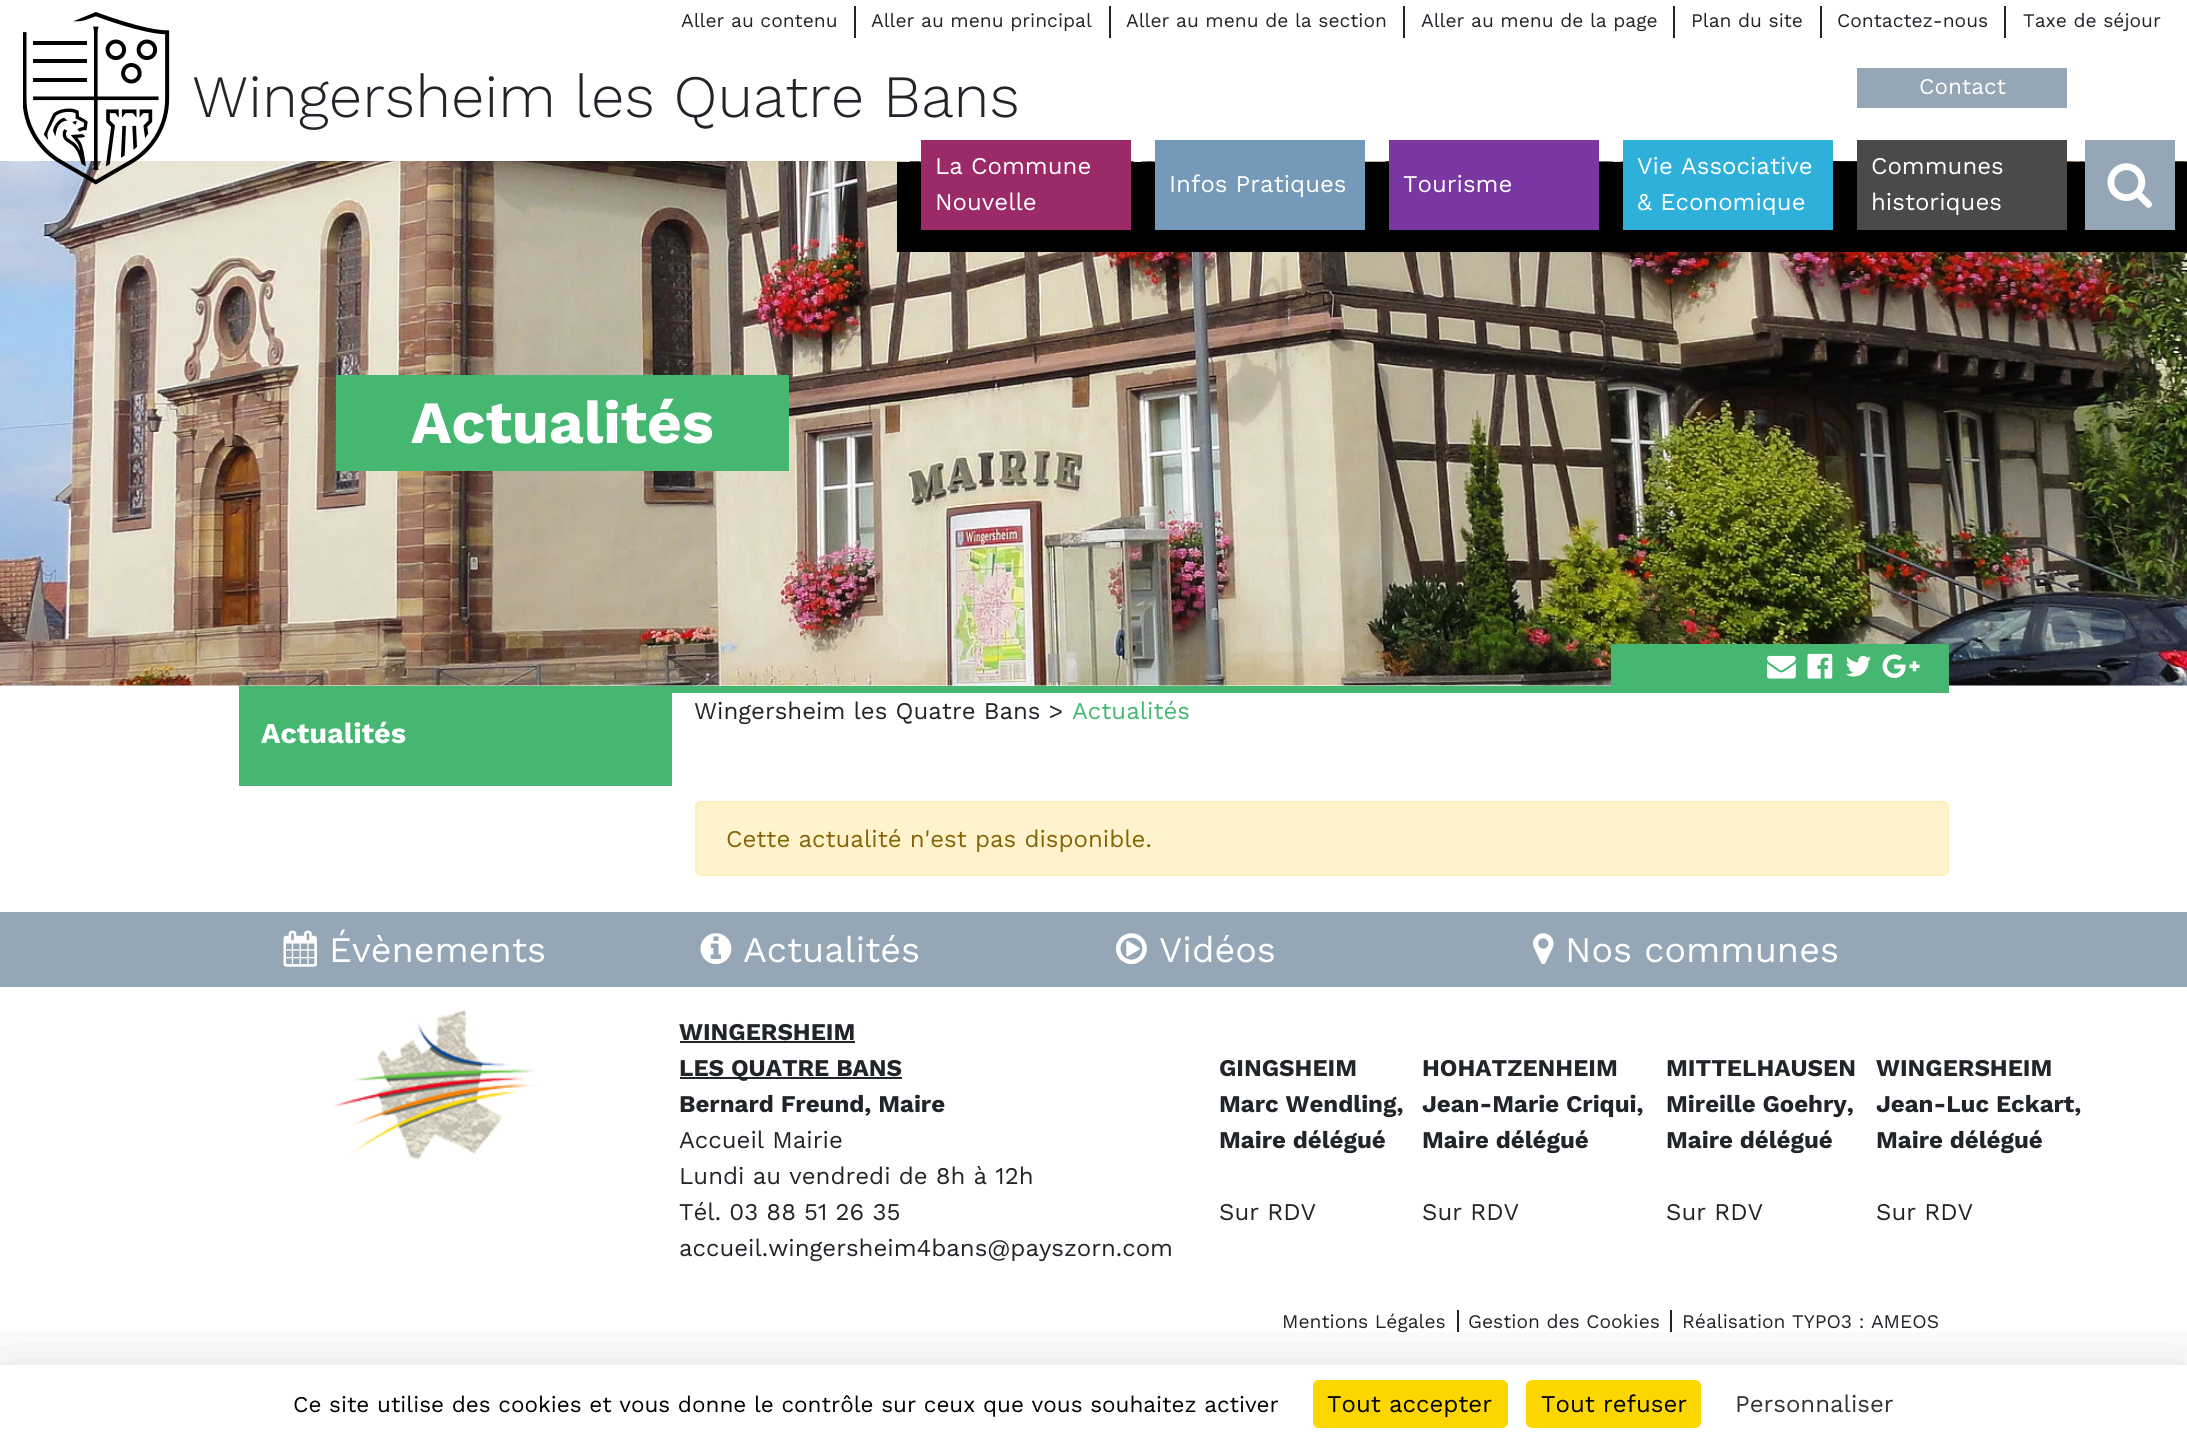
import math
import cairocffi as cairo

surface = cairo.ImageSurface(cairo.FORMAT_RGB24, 2187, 1443)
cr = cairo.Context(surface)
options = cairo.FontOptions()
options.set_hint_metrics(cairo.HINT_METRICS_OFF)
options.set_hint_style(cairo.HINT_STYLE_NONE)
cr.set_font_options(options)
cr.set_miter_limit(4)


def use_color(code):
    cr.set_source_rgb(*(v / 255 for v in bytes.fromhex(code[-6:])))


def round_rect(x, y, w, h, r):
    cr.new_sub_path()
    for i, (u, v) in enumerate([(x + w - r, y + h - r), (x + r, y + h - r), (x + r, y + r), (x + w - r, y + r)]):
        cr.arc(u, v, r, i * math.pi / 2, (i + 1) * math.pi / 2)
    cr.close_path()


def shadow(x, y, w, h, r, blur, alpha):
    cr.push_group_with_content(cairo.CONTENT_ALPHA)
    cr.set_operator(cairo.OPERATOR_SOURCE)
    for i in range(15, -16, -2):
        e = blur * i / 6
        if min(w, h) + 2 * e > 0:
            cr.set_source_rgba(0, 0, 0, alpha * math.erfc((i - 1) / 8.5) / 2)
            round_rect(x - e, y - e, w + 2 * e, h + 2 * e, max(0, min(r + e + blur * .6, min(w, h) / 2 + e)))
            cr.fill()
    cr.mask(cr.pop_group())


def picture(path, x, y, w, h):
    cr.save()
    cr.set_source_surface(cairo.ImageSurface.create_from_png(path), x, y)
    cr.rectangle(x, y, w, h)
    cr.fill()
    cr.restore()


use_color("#ffffff")
cr.paint()
use_color("#212529")
cr.rectangle(854, 6, 2, 32)
cr.fill()
cr.select_font_face("Work Sans")
cr.set_font_size(19.25)
cr.move_to(681, 27)
cr.show_text("Aller au contenu")
cr.rectangle(1109, 6, 2, 32)
cr.fill()
cr.move_to(871, 27)
cr.show_text("Aller au menu principal")
cr.rectangle(1403, 6, 2, 32)
cr.fill()
cr.move_to(1126, 27)
cr.show_text("Aller au menu de la section")
cr.rectangle(1673, 6, 2, 32)
cr.fill()
cr.move_to(1421, 27)
cr.show_text("Aller au menu de la page")
cr.rectangle(1820, 6, 2, 32)
cr.fill()
cr.move_to(1691, 27)
cr.show_text("Plan du site")
cr.rectangle(2004, 6, 2, 32)
cr.fill()
cr.move_to(1837, 27)
cr.show_text("Contactez-nous")
cr.move_to(2023, 27)
cr.show_text("Taxe de séjour")
picture("img3.png", 0, 161, 2187, 525)
picture("img1.png", 23, 12, 147, 173)
cr.select_font_face("Work Sans Light")
cr.set_font_size(60)
cr.move_to(192, 117)
cr.show_text("Wingersheim les Quatre Bans")
use_color("#95a6b6")
cr.rectangle(1857, 68, 210, 40)
cr.fill()
cr.select_font_face("Work Sans")
cr.set_font_size(22.5)
use_color("#ffffff")
cr.move_to(1919, 94)
cr.show_text("Contact")
use_color("#000000")
cr.rectangle(897, 162, 1290, 90)
cr.fill()
use_color("#9c2968")
cr.rectangle(921, 140, 210, 90)
cr.fill()
cr.set_font_size(24)
use_color("#ffffff")
cr.move_to(935, 174)
cr.show_text("La Commune")
cr.move_to(935, 210)
cr.show_text("Nouvelle")
use_color("#7599b8")
cr.rectangle(1155, 140, 210, 90)
cr.fill()
use_color("#ffffff")
cr.move_to(1169, 192)
cr.show_text("Infos Pratiques")
use_color("#7b37a1")
cr.rectangle(1389, 140, 210, 90)
cr.fill()
use_color("#ffffff")
cr.move_to(1403, 192)
cr.show_text("Tourisme")
use_color("#2eb0db")
cr.rectangle(1623, 140, 210, 90)
cr.fill()
use_color("#ffffff")
cr.move_to(1637, 174)
cr.show_text("Vie Associative")
cr.move_to(1637, 210)
cr.show_text("& Economique")
use_color("#4a4a4a")
cr.rectangle(1857, 140, 210, 90)
cr.fill()
use_color("#ffffff")
cr.move_to(1871, 174)
cr.show_text("Communes")
cr.move_to(1871, 210)
cr.show_text("historiques")
use_color("#95a6b6")
cr.rectangle(2085, 140, 90, 90)
cr.fill()
picture("img2.png", 2107, 163, 45, 45)
use_color("#45b771")
cr.rectangle(336, 375, 453, 96)
cr.fill()
cr.select_font_face("Work Sans", cairo.FONT_SLANT_NORMAL, cairo.FONT_WEIGHT_BOLD)
cr.set_font_size(60)
use_color("#ffffff")
cr.move_to(411, 443)
cr.show_text("Actualités")
use_color("#45b771")
cr.rectangle(239, 686, 1372, 7)
cr.fill()
cr.rectangle(239, 693, 433, 93)
cr.fill()
cr.set_font_size(28.75)
use_color("#ffffff")
cr.move_to(261, 743)
cr.show_text("Actualités")
use_color("#45b771")
cr.rectangle(1611, 644, 338, 49)
cr.fill()
picture("img4.png", 1767, 655, 29, 24)
picture("img5.png", 1807, 653, 26, 26)
picture("img6.png", 1846, 655, 25, 22)
picture("img7.png", 1882, 654, 38, 24)
cr.select_font_face("Work Sans")
cr.set_font_size(24)
use_color("#212529")
cr.move_to(694, 719)
cr.show_text("Wingersheim les Quatre Bans >")
use_color("#45b771")
cr.move_to(1072, 719)
cr.show_text("Actualités")
use_color("#fff3cd")
round_rect(696, 802, 1252, 73, 5)
cr.fill_preserve()
use_color("#ffeeba")
cr.stroke()
use_color("#856404")
cr.move_to(726, 847)
cr.show_text("Cette actualité n'est pas disponible.")
use_color("#95a6b6")
cr.rectangle(0, 912, 2187, 75)
cr.fill()
picture("img8.png", 283, 930, 34, 37)
cr.set_font_size(36)
use_color("#ffffff")
cr.move_to(329, 962)
cr.show_text("Évènements")
picture("img9.png", 700, 933, 32, 32)
cr.move_to(743, 962)
cr.show_text("Actualités")
picture("img10.png", 1116, 933, 31, 32)
cr.move_to(1159, 962)
cr.show_text("Vidéos")
picture("img11.png", 1533, 933, 21, 31)
cr.move_to(1565, 962)
cr.show_text("Nos communes")
picture("img12.png", 332, 1009, 206, 151)
cr.select_font_face("Work Sans", cairo.FONT_SLANT_NORMAL, cairo.FONT_WEIGHT_BOLD)
cr.set_font_size(24)
use_color("#212529")
cr.move_to(679, 1040)
cr.show_text("WINGERSHEIM")
cr.rectangle(680, 1041, 175, 2)
cr.fill()
cr.rectangle(680, 1077, 222, 2)
cr.fill()
cr.move_to(679, 1076)
cr.show_text("LES QUATRE BANS")
cr.move_to(679, 1112)
cr.show_text("Bernard Freund, Maire")
cr.select_font_face("Work Sans")
cr.move_to(679, 1148)
cr.show_text("Accueil Mairie")
cr.move_to(679, 1184)
cr.show_text("Lundi au vendredi de 8h à 12h")
cr.move_to(679, 1220)
cr.show_text("Tél. 03 88 51 26 35")
cr.move_to(679, 1256)
cr.show_text("accueil.wingersheim4bans@payszorn.com")
cr.select_font_face("Work Sans", cairo.FONT_SLANT_NORMAL, cairo.FONT_WEIGHT_BOLD)
cr.move_to(1219, 1076)
cr.show_text("GINGSHEIM")
cr.move_to(1219, 1112)
cr.show_text("Marc Wendling,")
cr.move_to(1219, 1148)
cr.show_text("Maire délégué")
cr.select_font_face("Work Sans")
cr.move_to(1219, 1220)
cr.show_text("Sur RDV")
cr.select_font_face("Work Sans", cairo.FONT_SLANT_NORMAL, cairo.FONT_WEIGHT_BOLD)
cr.move_to(1422, 1076)
cr.show_text("HOHATZENHEIM")
cr.move_to(1422, 1112)
cr.show_text("Jean-Marie Criqui,")
cr.move_to(1422, 1148)
cr.show_text("Maire délégué")
cr.select_font_face("Work Sans")
cr.move_to(1422, 1220)
cr.show_text("Sur RDV")
cr.select_font_face("Work Sans", cairo.FONT_SLANT_NORMAL, cairo.FONT_WEIGHT_BOLD)
cr.move_to(1666, 1076)
cr.show_text("MITTELHAUSEN")
cr.move_to(1666, 1112)
cr.show_text("Mireille Goehry,")
cr.move_to(1666, 1148)
cr.show_text("Maire délégué")
cr.select_font_face("Work Sans")
cr.move_to(1666, 1220)
cr.show_text("Sur RDV")
cr.select_font_face("Work Sans", cairo.FONT_SLANT_NORMAL, cairo.FONT_WEIGHT_BOLD)
cr.move_to(1876, 1076)
cr.show_text("WINGERSHEIM")
cr.move_to(1876, 1112)
cr.show_text("Jean-Luc Eckart,")
cr.move_to(1876, 1148)
cr.show_text("Maire délégué")
cr.select_font_face("Work Sans")
cr.move_to(1876, 1220)
cr.show_text("Sur RDV")
cr.set_font_size(19.25)
cr.move_to(1282, 1328)
cr.show_text("Mentions Légales")
cr.rectangle(1457, 1310, 2, 22)
cr.fill()
cr.move_to(1468, 1328)
cr.show_text("Gestion des Cookies")
cr.rectangle(1670, 1310, 2, 22)
cr.fill()
cr.move_to(1682, 1328)
cr.show_text("Réalisation TYPO3 : AMEOS")
cr.save()
cr.rectangle(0, 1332, 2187, 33)
cr.clip()
use_color("#000000")
shadow(0, 1395, 2187, 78, 0, 45, 0.25)
cr.restore()
cr.set_font_size(22.5)
use_color("#000000")
cr.move_to(293, 1412)
cr.show_text("Ce site utilise des cookies et vous donne le contrôle sur ceux que vous souhaitez activer")
use_color("#fbd600")
round_rect(1313, 1380, 195, 48, 6)
cr.fill()
cr.set_font_size(24)
use_color("#000000")
cr.move_to(1327, 1412)
cr.show_text("Tout accepter")
use_color("#fbd600")
round_rect(1526, 1380, 175, 48, 6)
cr.fill()
use_color("#000000")
cr.move_to(1541, 1412)
cr.show_text("Tout refuser")
use_color("#333333")
cr.move_to(1735, 1412)
cr.show_text("Personnaliser")
surface.write_to_png("result.png")
